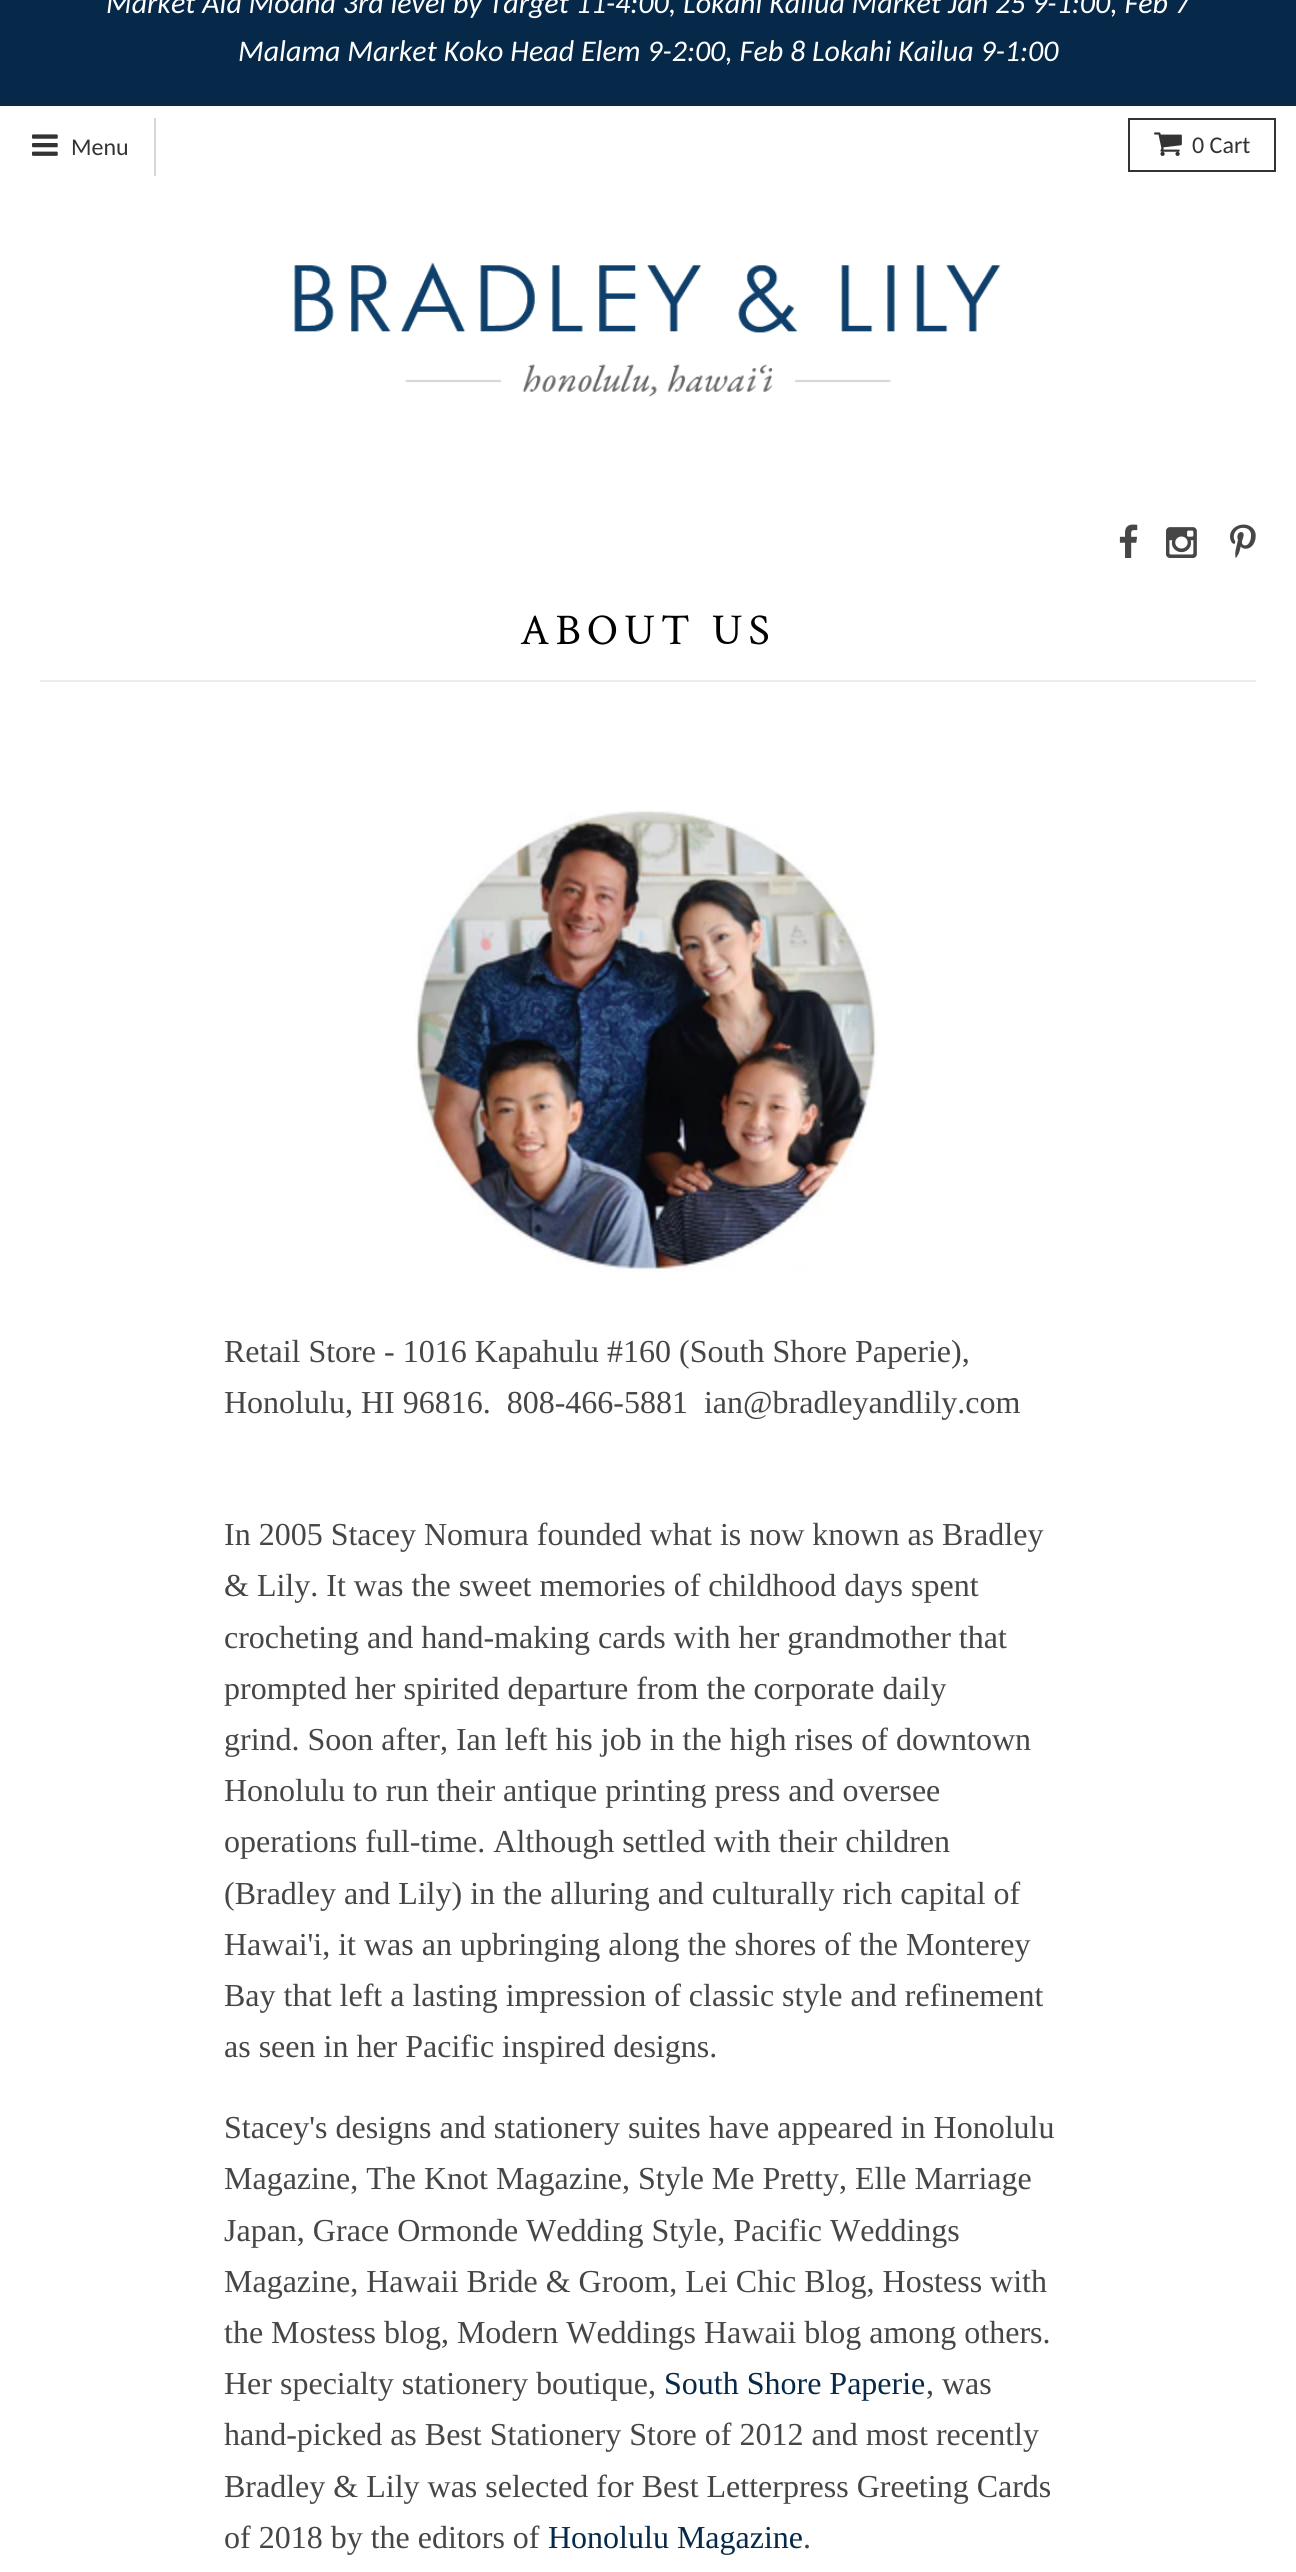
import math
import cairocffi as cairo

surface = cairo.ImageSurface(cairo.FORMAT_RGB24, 1296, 2572)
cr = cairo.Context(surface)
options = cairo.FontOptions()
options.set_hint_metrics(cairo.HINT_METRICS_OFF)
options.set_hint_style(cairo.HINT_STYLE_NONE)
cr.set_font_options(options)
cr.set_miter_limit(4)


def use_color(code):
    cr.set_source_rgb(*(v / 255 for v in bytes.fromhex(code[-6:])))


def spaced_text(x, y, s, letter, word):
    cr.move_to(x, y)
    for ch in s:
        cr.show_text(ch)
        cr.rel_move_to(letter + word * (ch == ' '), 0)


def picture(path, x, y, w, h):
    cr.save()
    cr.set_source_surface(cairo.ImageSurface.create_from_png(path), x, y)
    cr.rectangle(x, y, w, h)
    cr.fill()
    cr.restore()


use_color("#ffffff")
cr.paint()
use_color("#062949")
cr.rectangle(0, 0, 1296, 106)
cr.fill()
cr.select_font_face("Carlito", cairo.FONT_SLANT_ITALIC)
cr.set_font_size(30)
use_color("#ffffff")
cr.move_to(106, 13)
cr.show_text("Market Ala Moana 3rd level by Target 11-4:00, Lokahi Kailua Market Jan 25 9-1:00, Feb 7")
cr.move_to(238, 61)
cr.show_text("Malama Market Koko Head Elem 9-2:00, Feb 8 Lokahi Kailua 9-1:00")
use_color("#d6d6d6")
cr.rectangle(154, 118, 2, 58)
cr.fill()
picture("img1.png", 32, 134, 26, 22)
cr.select_font_face("Carlito")
cr.set_font_size(24)
use_color("#333333")
cr.move_to(71, 155)
cr.show_text("Menu")
cr.rectangle(1129, 119, 146, 52)
cr.stroke()
picture("img2.png", 1154, 132, 28, 24)
cr.move_to(1192, 153)
cr.show_text("0 Cart")
picture("img3.png", 294, 262, 707, 135)
picture("img4.png", 1119, 524, 19, 34)
picture("img5.png", 1166, 527, 31, 31)
picture("img6.png", 1230, 524, 26, 34)
use_color("#ececec")
cr.rectangle(40, 680, 1216, 2)
cr.fill()
cr.select_font_face("Crimson Text")
cr.set_font_size(44)
use_color("#000000")
spaced_text(520, 644, "ABOUT US", 6, 0)
picture("img7.png", 414, 810, 464, 463)
cr.select_font_face("Liberation Serif")
cr.set_font_size(32)
use_color("#464646")
cr.move_to(224, 1362)
cr.show_text("Retail Store - 1016 Kapahulu #160 (South Shore Paperie),")
cr.move_to(224, 1413)
cr.show_text("Honolulu, HI 96816.  808-466-5881  ian@bradleyandlily.com")
cr.move_to(224, 1545)
cr.show_text("In 2005 Stacey Nomura founded what is now known as Bradley")
cr.move_to(224, 1596)
cr.show_text("& Lily. It was the sweet memories of childhood days spent")
cr.move_to(224, 1648)
cr.show_text("crocheting and hand-making cards with her grandmother that")
cr.move_to(224, 1699)
cr.show_text("prompted her spirited departure from the corporate daily")
cr.move_to(224, 1750)
cr.show_text("grind. Soon after, Ian left his job in the high rises of downtown")
cr.move_to(224, 1801)
cr.show_text("Honolulu to run their antique printing press and oversee")
cr.move_to(224, 1852)
cr.show_text("operations full-time. Although settled with their children")
cr.move_to(224, 1904)
cr.show_text("(Bradley and Lily) in the alluring and culturally rich capital of")
cr.move_to(224, 1955)
cr.show_text("Hawai'i, it was an upbringing along the shores of the Monterey")
cr.move_to(224, 2006)
cr.show_text("Bay that left a lasting impression of classic style and refinement")
cr.move_to(224, 2057)
cr.show_text("as seen in her Pacific inspired designs.")
cr.move_to(224, 2138)
cr.show_text("Stacey's designs and stationery suites have appeared in Honolulu")
cr.move_to(224, 2189)
cr.show_text("Magazine, The Knot Magazine, Style Me Pretty, Elle Marriage")
cr.move_to(224, 2241)
cr.show_text("Japan, Grace Ormonde Wedding Style, Pacific Weddings")
cr.move_to(224, 2292)
cr.show_text("Magazine, Hawaii Bride & Groom, Lei Chic Blog, Hostess with")
cr.move_to(224, 2343)
cr.show_text("the Mostess blog, Modern Weddings Hawaii blog among others.")
cr.move_to(224, 2394)
cr.show_text("Her specialty stationery boutique,")
use_color("#062949")
cr.move_to(664, 2394)
cr.show_text("South Shore Paperie")
use_color("#464646")
cr.move_to(926, 2394)
cr.show_text(", was")
cr.move_to(224, 2445)
cr.show_text("hand-picked as Best Stationery Store of 2012 and most recently")
cr.move_to(224, 2497)
cr.show_text("Bradley & Lily was selected for Best Letterpress Greeting Cards")
cr.move_to(224, 2548)
cr.show_text("of 2018 by the editors of")
use_color("#062949")
cr.move_to(548, 2548)
cr.show_text("Honolulu Magazine")
use_color("#464646")
cr.move_to(803, 2548)
cr.show_text(".")
surface.write_to_png("result.png")
